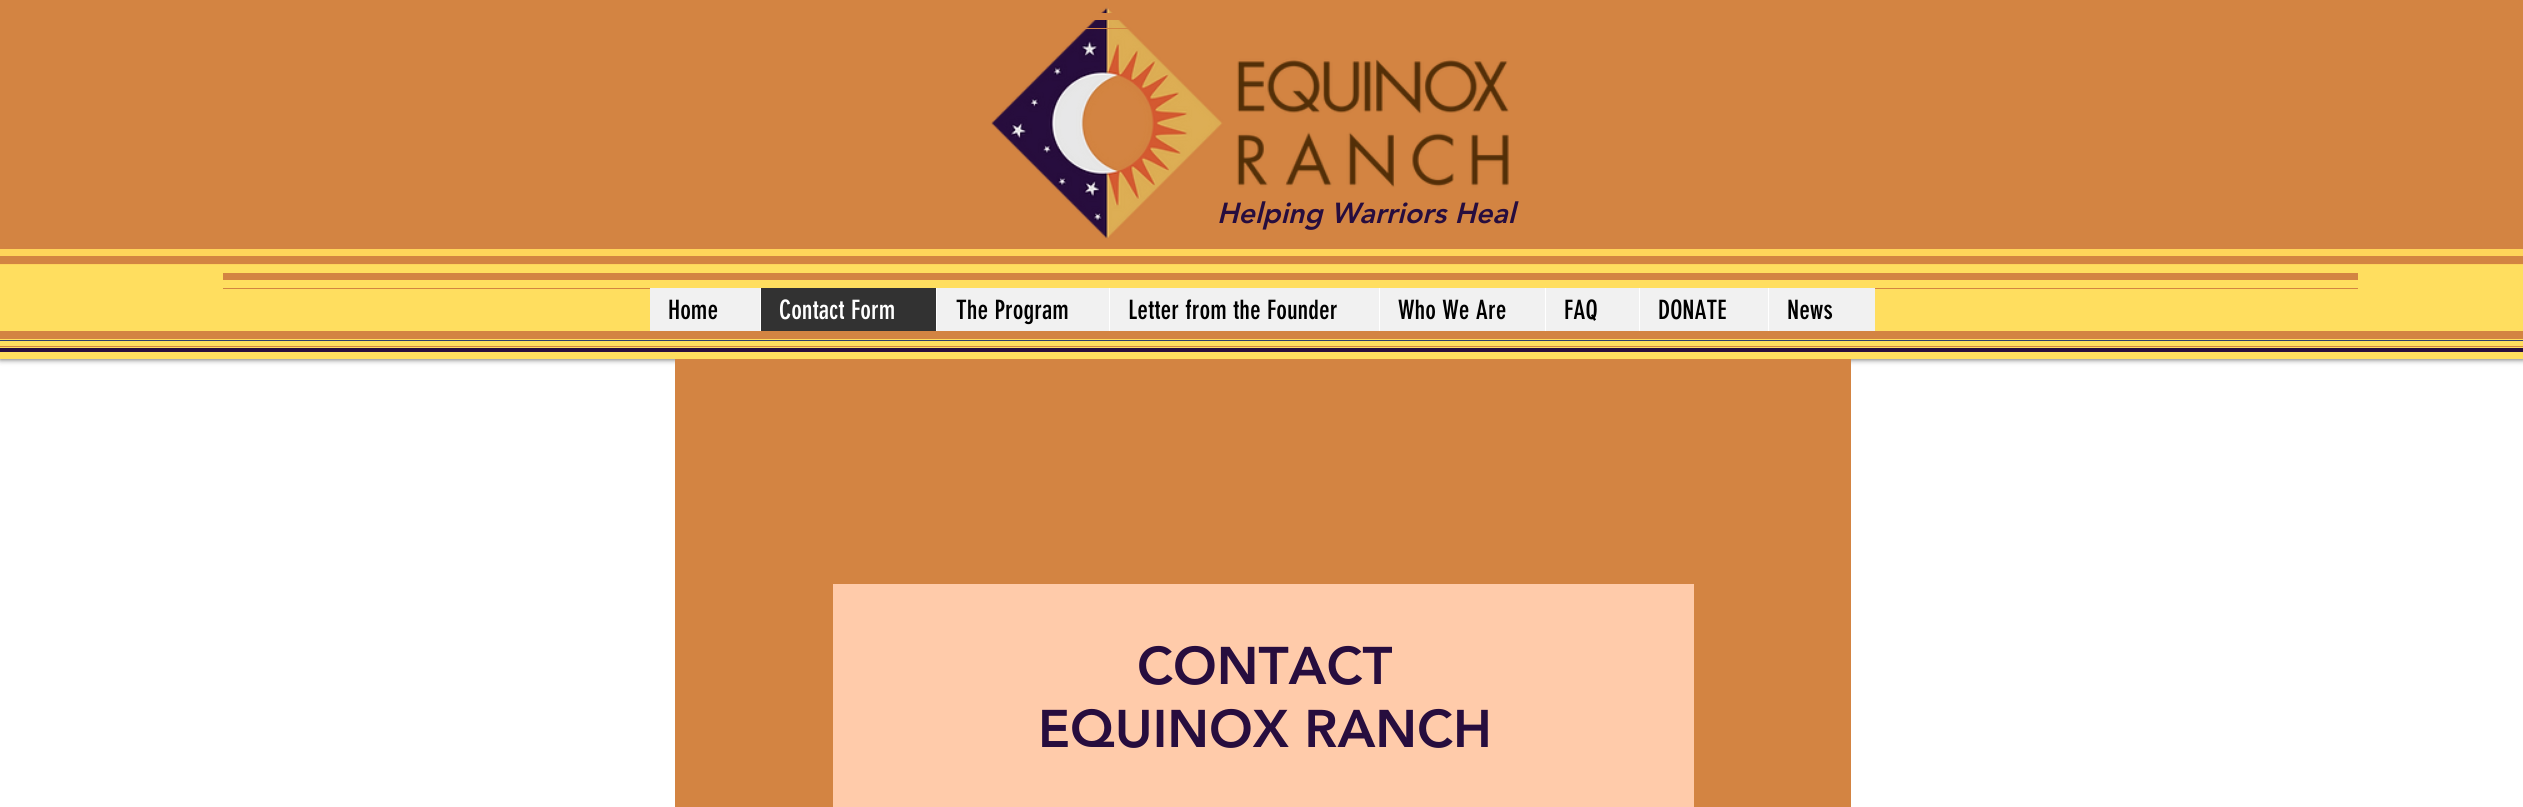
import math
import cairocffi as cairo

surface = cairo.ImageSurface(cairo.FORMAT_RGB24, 2523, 807)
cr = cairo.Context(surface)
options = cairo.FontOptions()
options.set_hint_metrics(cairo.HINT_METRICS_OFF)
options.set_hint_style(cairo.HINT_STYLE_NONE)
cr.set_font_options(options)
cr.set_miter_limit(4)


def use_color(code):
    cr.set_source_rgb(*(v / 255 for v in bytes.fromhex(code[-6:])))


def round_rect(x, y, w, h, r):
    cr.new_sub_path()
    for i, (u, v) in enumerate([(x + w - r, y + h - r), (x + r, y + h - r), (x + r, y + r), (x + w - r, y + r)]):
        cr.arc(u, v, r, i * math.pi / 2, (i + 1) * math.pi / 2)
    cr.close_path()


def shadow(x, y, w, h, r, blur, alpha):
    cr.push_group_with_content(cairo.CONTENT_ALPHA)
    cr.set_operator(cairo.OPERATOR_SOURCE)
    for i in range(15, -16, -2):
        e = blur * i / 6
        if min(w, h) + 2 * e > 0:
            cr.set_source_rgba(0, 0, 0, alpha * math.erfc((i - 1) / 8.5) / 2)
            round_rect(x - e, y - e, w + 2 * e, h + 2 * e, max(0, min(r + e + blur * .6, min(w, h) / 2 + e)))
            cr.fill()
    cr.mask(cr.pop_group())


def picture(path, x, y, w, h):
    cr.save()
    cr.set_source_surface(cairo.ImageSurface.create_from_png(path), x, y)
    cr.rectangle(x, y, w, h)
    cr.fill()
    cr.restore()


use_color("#ffffff")
cr.paint()
use_color("#000000")
shadow(0, 0, 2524, 359, 0, 3, 0.7)
use_color("#ffde5f")
cr.rectangle(0, 265, 2523, 94)
cr.fill()
use_color("#270d3e")
cr.rectangle(0, 348, 2523, 4)
cr.fill()
use_color("#31406e")
cr.rectangle(0, 340, 2523, 1)
cr.fill()
use_color("#d38442")
cr.rectangle(0, 0, 2523, 264)
cr.fill()
picture("img1.png", 991, 7, 518, 232)
cr.rectangle(1093, 13, 26, 7)
cr.fill()
cr.rectangle(1085, 28, 44, 1)
cr.fill()
cr.select_font_face("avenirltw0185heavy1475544 Black", cairo.FONT_SLANT_ITALIC)
cr.set_font_size(28.75)
use_color("#270d3e")
cr.move_to(1217, 223)
cr.show_text("Helping Warriors Heal")
use_color("#ffd45a")
cr.rectangle(0, 249, 2523, 7)
cr.fill()
cr.rectangle(0, 264, 2523, 1)
cr.fill()
use_color("#d38442")
cr.rectangle(223, 273, 2135, 7)
cr.fill()
cr.rectangle(223, 288, 2135, 1)
cr.fill()
use_color("#f1f1f1")
cr.rectangle(650, 288, 1225, 43)
cr.fill()
cr.select_font_face("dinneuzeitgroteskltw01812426")
cr.set_font_size(26.25)
use_color("#000000")
cr.move_to(668, 319)
cr.show_text("Home")
use_color("#323232")
cr.rectangle(761, 288, 175, 43)
cr.fill()
use_color("#ffffff")
cr.rectangle(760, 288, 1, 43)
cr.fill()
cr.move_to(779, 319)
cr.show_text("Contact Form")
cr.rectangle(936, 288, 1, 43)
cr.fill()
use_color("#000000")
cr.move_to(956, 319)
cr.show_text("The Program")
use_color("#ffffff")
cr.rectangle(1109, 288, 1, 43)
cr.fill()
use_color("#000000")
cr.move_to(1128, 319)
cr.show_text("Letter from the Founder")
use_color("#ffffff")
cr.rectangle(1379, 288, 1, 43)
cr.fill()
use_color("#000000")
cr.move_to(1398, 319)
cr.show_text("Who We Are")
use_color("#ffffff")
cr.rectangle(1545, 288, 1, 43)
cr.fill()
use_color("#000000")
cr.move_to(1564, 319)
cr.show_text("FAQ")
use_color("#ffffff")
cr.rectangle(1639, 288, 1, 43)
cr.fill()
use_color("#000000")
cr.move_to(1658, 319)
cr.show_text("DONATE")
use_color("#ffffff")
cr.rectangle(1768, 288, 1, 43)
cr.fill()
use_color("#000000")
cr.move_to(1787, 319)
cr.show_text("News")
use_color("#d38442")
cr.rectangle(0, 331, 2523, 8)
cr.fill()
cr.rectangle(0, 346, 2523, 1)
cr.fill()
cr.rectangle(675, 359, 1176, 448)
cr.fill()
use_color("#ffcbaa")
cr.rectangle(833, 584, 861, 223)
cr.fill()
cr.select_font_face("avenirltw0185heavy1475544 Black")
cr.set_font_size(52.5)
use_color("#270d3e")
cr.move_to(1137, 684)
cr.show_text("CONTACT")
cr.move_to(1038, 747)
cr.show_text("EQUINOX RANCH")
surface.write_to_png("result.png")
